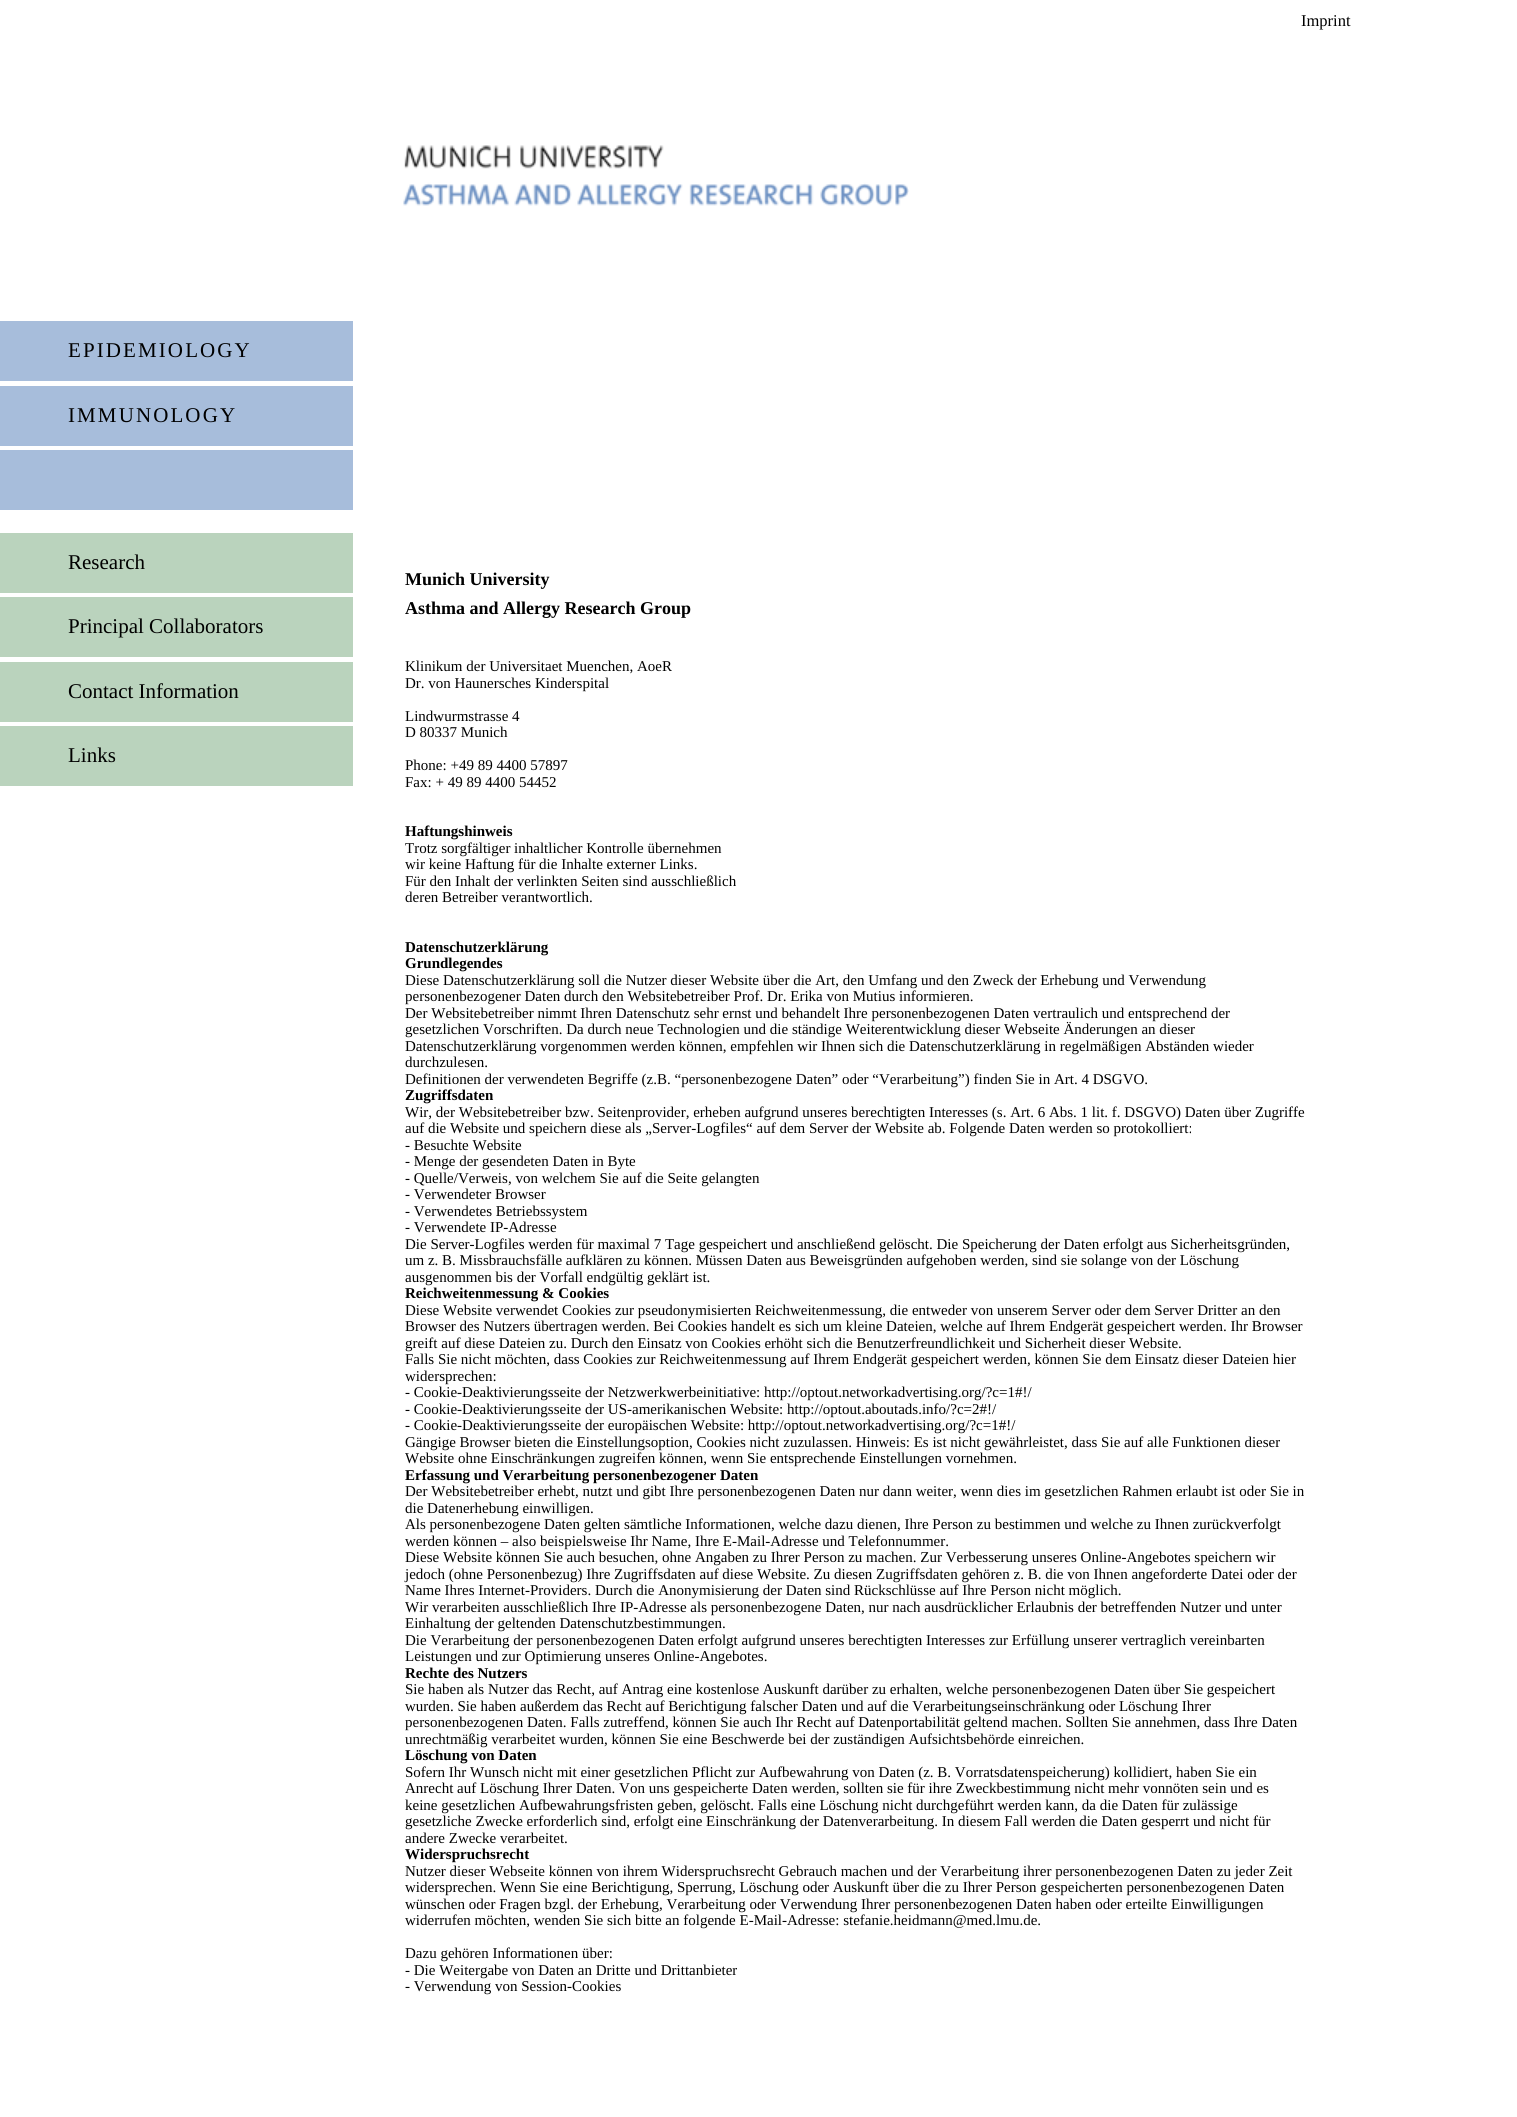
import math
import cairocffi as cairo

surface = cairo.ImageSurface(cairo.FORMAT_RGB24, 1517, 2117)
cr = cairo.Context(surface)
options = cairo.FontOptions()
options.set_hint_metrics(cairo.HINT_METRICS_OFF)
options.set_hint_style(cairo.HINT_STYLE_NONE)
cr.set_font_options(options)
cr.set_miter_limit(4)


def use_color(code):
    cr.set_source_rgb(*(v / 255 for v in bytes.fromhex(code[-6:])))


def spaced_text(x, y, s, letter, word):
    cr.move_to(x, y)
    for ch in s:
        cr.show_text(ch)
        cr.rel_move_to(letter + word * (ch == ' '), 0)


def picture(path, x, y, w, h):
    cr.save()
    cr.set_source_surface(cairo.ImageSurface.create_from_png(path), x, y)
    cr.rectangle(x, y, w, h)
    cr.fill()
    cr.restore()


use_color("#ffffff")
cr.paint()
cr.select_font_face("Liberation Serif")
cr.set_font_size(16.5)
use_color("#000000")
cr.move_to(1301, 26)
cr.show_text("Imprint")
picture("img1.png", 403, 145, 506, 61)
use_color("#a7bddb")
cr.rectangle(0, 321, 353, 60)
cr.fill()
cr.set_font_size(21)
use_color("#000000")
spaced_text(68, 357, "EPIDEMIOLOGY", 2.1, 0)
use_color("#a7bddb")
cr.rectangle(0, 386, 353, 60)
cr.fill()
use_color("#000000")
spaced_text(68, 422, "IMMUNOLOGY", 2.1, 0)
use_color("#a7bddb")
cr.rectangle(0, 450, 353, 60)
cr.fill()
use_color("#bad3bd")
cr.rectangle(0, 533, 353, 60)
cr.fill()
use_color("#000000")
cr.move_to(68, 569)
cr.show_text("Research")
use_color("#bad3bd")
cr.rectangle(0, 597, 353, 60)
cr.fill()
use_color("#000000")
cr.move_to(68, 633)
cr.show_text("Principal Collaborators")
use_color("#bad3bd")
cr.rectangle(0, 662, 353, 60)
cr.fill()
use_color("#000000")
cr.move_to(68, 698)
cr.show_text("Contact Information")
use_color("#bad3bd")
cr.rectangle(0, 726, 353, 60)
cr.fill()
use_color("#000000")
cr.move_to(68, 762)
cr.show_text("Links")
cr.select_font_face("Liberation Serif", cairo.FONT_SLANT_NORMAL, cairo.FONT_WEIGHT_BOLD)
cr.set_font_size(18)
cr.move_to(405, 585)
cr.show_text("Munich University")
cr.move_to(405, 614)
cr.show_text("Asthma and Allergy Research Group")
cr.select_font_face("Liberation Serif")
cr.set_font_size(15)
cr.move_to(405, 671)
cr.show_text("Klinikum der Universitaet Muenchen, AoeR")
cr.move_to(405, 688)
cr.show_text("Dr. von Haunersches Kinderspital")
cr.move_to(405, 721)
cr.show_text("Lindwurmstrasse 4")
cr.move_to(405, 737)
cr.show_text("D 80337 Munich")
cr.move_to(405, 770)
cr.show_text("Phone: +49 89 4400 57897")
cr.move_to(405, 787)
cr.show_text("Fax: + 49 89 4400 54452")
cr.select_font_face("Liberation Serif", cairo.FONT_SLANT_NORMAL, cairo.FONT_WEIGHT_BOLD)
cr.move_to(405, 836)
cr.show_text("Haftungshinweis")
cr.select_font_face("Liberation Serif")
cr.move_to(405, 853)
cr.show_text("Trotz sorgfältiger inhaltlicher Kontrolle übernehmen")
cr.move_to(405, 869)
cr.show_text("wir keine Haftung für die Inhalte externer Links.")
cr.move_to(405, 886)
cr.show_text("Für den Inhalt der verlinkten Seiten sind ausschließlich")
cr.move_to(405, 902)
cr.show_text("deren Betreiber verantwortlich.")
cr.select_font_face("Liberation Serif", cairo.FONT_SLANT_NORMAL, cairo.FONT_WEIGHT_BOLD)
cr.move_to(405, 952)
cr.show_text("Datenschutzerklärung")
cr.move_to(405, 968)
cr.show_text("Grundlegendes")
cr.select_font_face("Liberation Serif")
cr.move_to(405, 985)
cr.show_text("Diese Datenschutzerklärung soll die Nutzer dieser Website über die Art, den Umfang und den Zweck der Erhebung und Verwendung")
cr.move_to(405, 1001)
cr.show_text("personenbezogener Daten durch den Websitebetreiber Prof. Dr. Erika von Mutius informieren.")
cr.move_to(405, 1018)
cr.show_text("Der Websitebetreiber nimmt Ihren Datenschutz sehr ernst und behandelt Ihre personenbezogenen Daten vertraulich und entsprechend der")
cr.move_to(405, 1034)
cr.show_text("gesetzlichen Vorschriften. Da durch neue Technologien und die ständige Weiterentwicklung dieser Webseite Änderungen an dieser")
cr.move_to(405, 1051)
cr.show_text("Datenschutzerklärung vorgenommen werden können, empfehlen wir Ihnen sich die Datenschutzerklärung in regelmäßigen Abständen wieder")
cr.move_to(405, 1067)
cr.show_text("durchzulesen.")
cr.move_to(405, 1084)
cr.show_text("Definitionen der verwendeten Begriffe (z.B. “personenbezogene Daten” oder “Verarbeitung”) finden Sie in Art. 4 DSGVO.")
cr.select_font_face("Liberation Serif", cairo.FONT_SLANT_NORMAL, cairo.FONT_WEIGHT_BOLD)
cr.move_to(405, 1100)
cr.show_text("Zugriffsdaten")
cr.select_font_face("Liberation Serif")
cr.move_to(405, 1117)
cr.show_text("Wir, der Websitebetreiber bzw. Seitenprovider, erheben aufgrund unseres berechtigten Interesses (s. Art. 6 Abs. 1 lit. f. DSGVO) Daten über Zugriffe")
cr.move_to(405, 1133)
cr.show_text("auf die Website und speichern diese als „Server-Logfiles“ auf dem Server der Website ab. Folgende Daten werden so protokolliert:")
cr.move_to(405, 1150)
cr.show_text("- Besuchte Website")
cr.move_to(405, 1166)
cr.show_text("- Menge der gesendeten Daten in Byte")
cr.move_to(405, 1183)
cr.show_text("- Quelle/Verweis, von welchem Sie auf die Seite gelangten")
cr.move_to(405, 1199)
cr.show_text("- Verwendeter Browser")
cr.move_to(405, 1216)
cr.show_text("- Verwendetes Betriebssystem")
cr.move_to(405, 1232)
cr.show_text("- Verwendete IP-Adresse")
cr.move_to(405, 1249)
cr.show_text("Die Server-Logfiles werden für maximal 7 Tage gespeichert und anschließend gelöscht. Die Speicherung der Daten erfolgt aus Sicherheitsgründen,")
cr.move_to(405, 1265)
cr.show_text("um z. B. Missbrauchsfälle aufklären zu können. Müssen Daten aus Beweisgründen aufgehoben werden, sind sie solange von der Löschung")
cr.move_to(405, 1282)
cr.show_text("ausgenommen bis der Vorfall endgültig geklärt ist.")
cr.select_font_face("Liberation Serif", cairo.FONT_SLANT_NORMAL, cairo.FONT_WEIGHT_BOLD)
cr.move_to(405, 1298)
cr.show_text("Reichweitenmessung & Cookies")
cr.select_font_face("Liberation Serif")
cr.move_to(405, 1315)
cr.show_text("Diese Website verwendet Cookies zur pseudonymisierten Reichweitenmessung, die entweder von unserem Server oder dem Server Dritter an den")
cr.move_to(405, 1331)
cr.show_text("Browser des Nutzers übertragen werden. Bei Cookies handelt es sich um kleine Dateien, welche auf Ihrem Endgerät gespeichert werden. Ihr Browser")
cr.move_to(405, 1348)
cr.show_text("greift auf diese Dateien zu. Durch den Einsatz von Cookies erhöht sich die Benutzerfreundlichkeit und Sicherheit dieser Website.")
cr.move_to(405, 1364)
cr.show_text("Falls Sie nicht möchten, dass Cookies zur Reichweitenmessung auf Ihrem Endgerät gespeichert werden, können Sie dem Einsatz dieser Dateien hier")
cr.move_to(405, 1381)
cr.show_text("widersprechen:")
cr.move_to(405, 1397)
cr.show_text("- Cookie-Deaktivierungsseite der Netzwerkwerbeinitiative: http://optout.networkadvertising.org/?c=1#!/")
cr.move_to(405, 1414)
cr.show_text("- Cookie-Deaktivierungsseite der US-amerikanischen Website: http://optout.aboutads.info/?c=2#!/")
cr.move_to(405, 1430)
cr.show_text("- Cookie-Deaktivierungsseite der europäischen Website: http://optout.networkadvertising.org/?c=1#!/")
cr.move_to(405, 1447)
cr.show_text("Gängige Browser bieten die Einstellungsoption, Cookies nicht zuzulassen. Hinweis: Es ist nicht gewährleistet, dass Sie auf alle Funktionen dieser")
cr.move_to(405, 1463)
cr.show_text("Website ohne Einschränkungen zugreifen können, wenn Sie entsprechende Einstellungen vornehmen.")
cr.select_font_face("Liberation Serif", cairo.FONT_SLANT_NORMAL, cairo.FONT_WEIGHT_BOLD)
cr.move_to(405, 1480)
cr.show_text("Erfassung und Verarbeitung personenbezogener Daten")
cr.select_font_face("Liberation Serif")
cr.move_to(405, 1496)
cr.show_text("Der Websitebetreiber erhebt, nutzt und gibt Ihre personenbezogenen Daten nur dann weiter, wenn dies im gesetzlichen Rahmen erlaubt ist oder Sie in")
cr.move_to(405, 1513)
cr.show_text("die Datenerhebung einwilligen.")
cr.move_to(405, 1529)
cr.show_text("Als personenbezogene Daten gelten sämtliche Informationen, welche dazu dienen, Ihre Person zu bestimmen und welche zu Ihnen zurückverfolgt")
cr.move_to(405, 1546)
cr.show_text("werden können – also beispielsweise Ihr Name, Ihre E-Mail-Adresse und Telefonnummer.")
cr.move_to(405, 1562)
cr.show_text("Diese Website können Sie auch besuchen, ohne Angaben zu Ihrer Person zu machen. Zur Verbesserung unseres Online-Angebotes speichern wir")
cr.move_to(405, 1579)
cr.show_text("jedoch (ohne Personenbezug) Ihre Zugriffsdaten auf diese Website. Zu diesen Zugriffsdaten gehören z. B. die von Ihnen angeforderte Datei oder der")
cr.move_to(405, 1595)
cr.show_text("Name Ihres Internet-Providers. Durch die Anonymisierung der Daten sind Rückschlüsse auf Ihre Person nicht möglich.")
cr.move_to(405, 1612)
cr.show_text("Wir verarbeiten ausschließlich Ihre IP-Adresse als personenbezogene Daten, nur nach ausdrücklicher Erlaubnis der betreffenden Nutzer und unter")
cr.move_to(405, 1628)
cr.show_text("Einhaltung der geltenden Datenschutzbestimmungen.")
cr.move_to(405, 1645)
cr.show_text("Die Verarbeitung der personenbezogenen Daten erfolgt aufgrund unseres berechtigten Interesses zur Erfüllung unserer vertraglich vereinbarten")
cr.move_to(405, 1661)
cr.show_text("Leistungen und zur Optimierung unseres Online-Angebotes.")
cr.select_font_face("Liberation Serif", cairo.FONT_SLANT_NORMAL, cairo.FONT_WEIGHT_BOLD)
cr.move_to(405, 1678)
cr.show_text("Rechte des Nutzers")
cr.select_font_face("Liberation Serif")
cr.move_to(405, 1694)
cr.show_text("Sie haben als Nutzer das Recht, auf Antrag eine kostenlose Auskunft darüber zu erhalten, welche personenbezogenen Daten über Sie gespeichert")
cr.move_to(405, 1711)
cr.show_text("wurden. Sie haben außerdem das Recht auf Berichtigung falscher Daten und auf die Verarbeitungseinschränkung oder Löschung Ihrer")
cr.move_to(405, 1727)
cr.show_text("personenbezogenen Daten. Falls zutreffend, können Sie auch Ihr Recht auf Datenportabilität geltend machen. Sollten Sie annehmen, dass Ihre Daten")
cr.move_to(405, 1744)
cr.show_text("unrechtmäßig verarbeitet wurden, können Sie eine Beschwerde bei der zuständigen Aufsichtsbehörde einreichen.")
cr.select_font_face("Liberation Serif", cairo.FONT_SLANT_NORMAL, cairo.FONT_WEIGHT_BOLD)
cr.move_to(405, 1760)
cr.show_text("Löschung von Daten")
cr.select_font_face("Liberation Serif")
cr.move_to(405, 1777)
cr.show_text("Sofern Ihr Wunsch nicht mit einer gesetzlichen Pflicht zur Aufbewahrung von Daten (z. B. Vorratsdatenspeicherung) kollidiert, haben Sie ein")
cr.move_to(405, 1793)
cr.show_text("Anrecht auf Löschung Ihrer Daten. Von uns gespeicherte Daten werden, sollten sie für ihre Zweckbestimmung nicht mehr vonnöten sein und es")
cr.move_to(405, 1810)
cr.show_text("keine gesetzlichen Aufbewahrungsfristen geben, gelöscht. Falls eine Löschung nicht durchgeführt werden kann, da die Daten für zulässige")
cr.move_to(405, 1826)
cr.show_text("gesetzliche Zwecke erforderlich sind, erfolgt eine Einschränkung der Datenverarbeitung. In diesem Fall werden die Daten gesperrt und nicht für")
cr.move_to(405, 1843)
cr.show_text("andere Zwecke verarbeitet.")
cr.select_font_face("Liberation Serif", cairo.FONT_SLANT_NORMAL, cairo.FONT_WEIGHT_BOLD)
cr.move_to(405, 1859)
cr.show_text("Widerspruchsrecht")
cr.select_font_face("Liberation Serif")
cr.move_to(405, 1876)
cr.show_text("Nutzer dieser Webseite können von ihrem Widerspruchsrecht Gebrauch machen und der Verarbeitung ihrer personenbezogenen Daten zu jeder Zeit")
cr.move_to(405, 1892)
cr.show_text("widersprechen. Wenn Sie eine Berichtigung, Sperrung, Löschung oder Auskunft über die zu Ihrer Person gespeicherten personenbezogenen Daten")
cr.move_to(405, 1909)
cr.show_text("wünschen oder Fragen bzgl. der Erhebung, Verarbeitung oder Verwendung Ihrer personenbezogenen Daten haben oder erteilte Einwilligungen")
cr.move_to(405, 1925)
cr.show_text("widerrufen möchten, wenden Sie sich bitte an folgende E-Mail-Adresse: stefanie.heidmann@med.lmu.de.")
cr.move_to(405, 1958)
cr.show_text("Dazu gehören Informationen über:")
cr.move_to(405, 1975)
cr.show_text("- Die Weitergabe von Daten an Dritte und Drittanbieter")
cr.move_to(405, 1991)
cr.show_text("- Verwendung von Session-Cookies")
surface.write_to_png("result.png")
